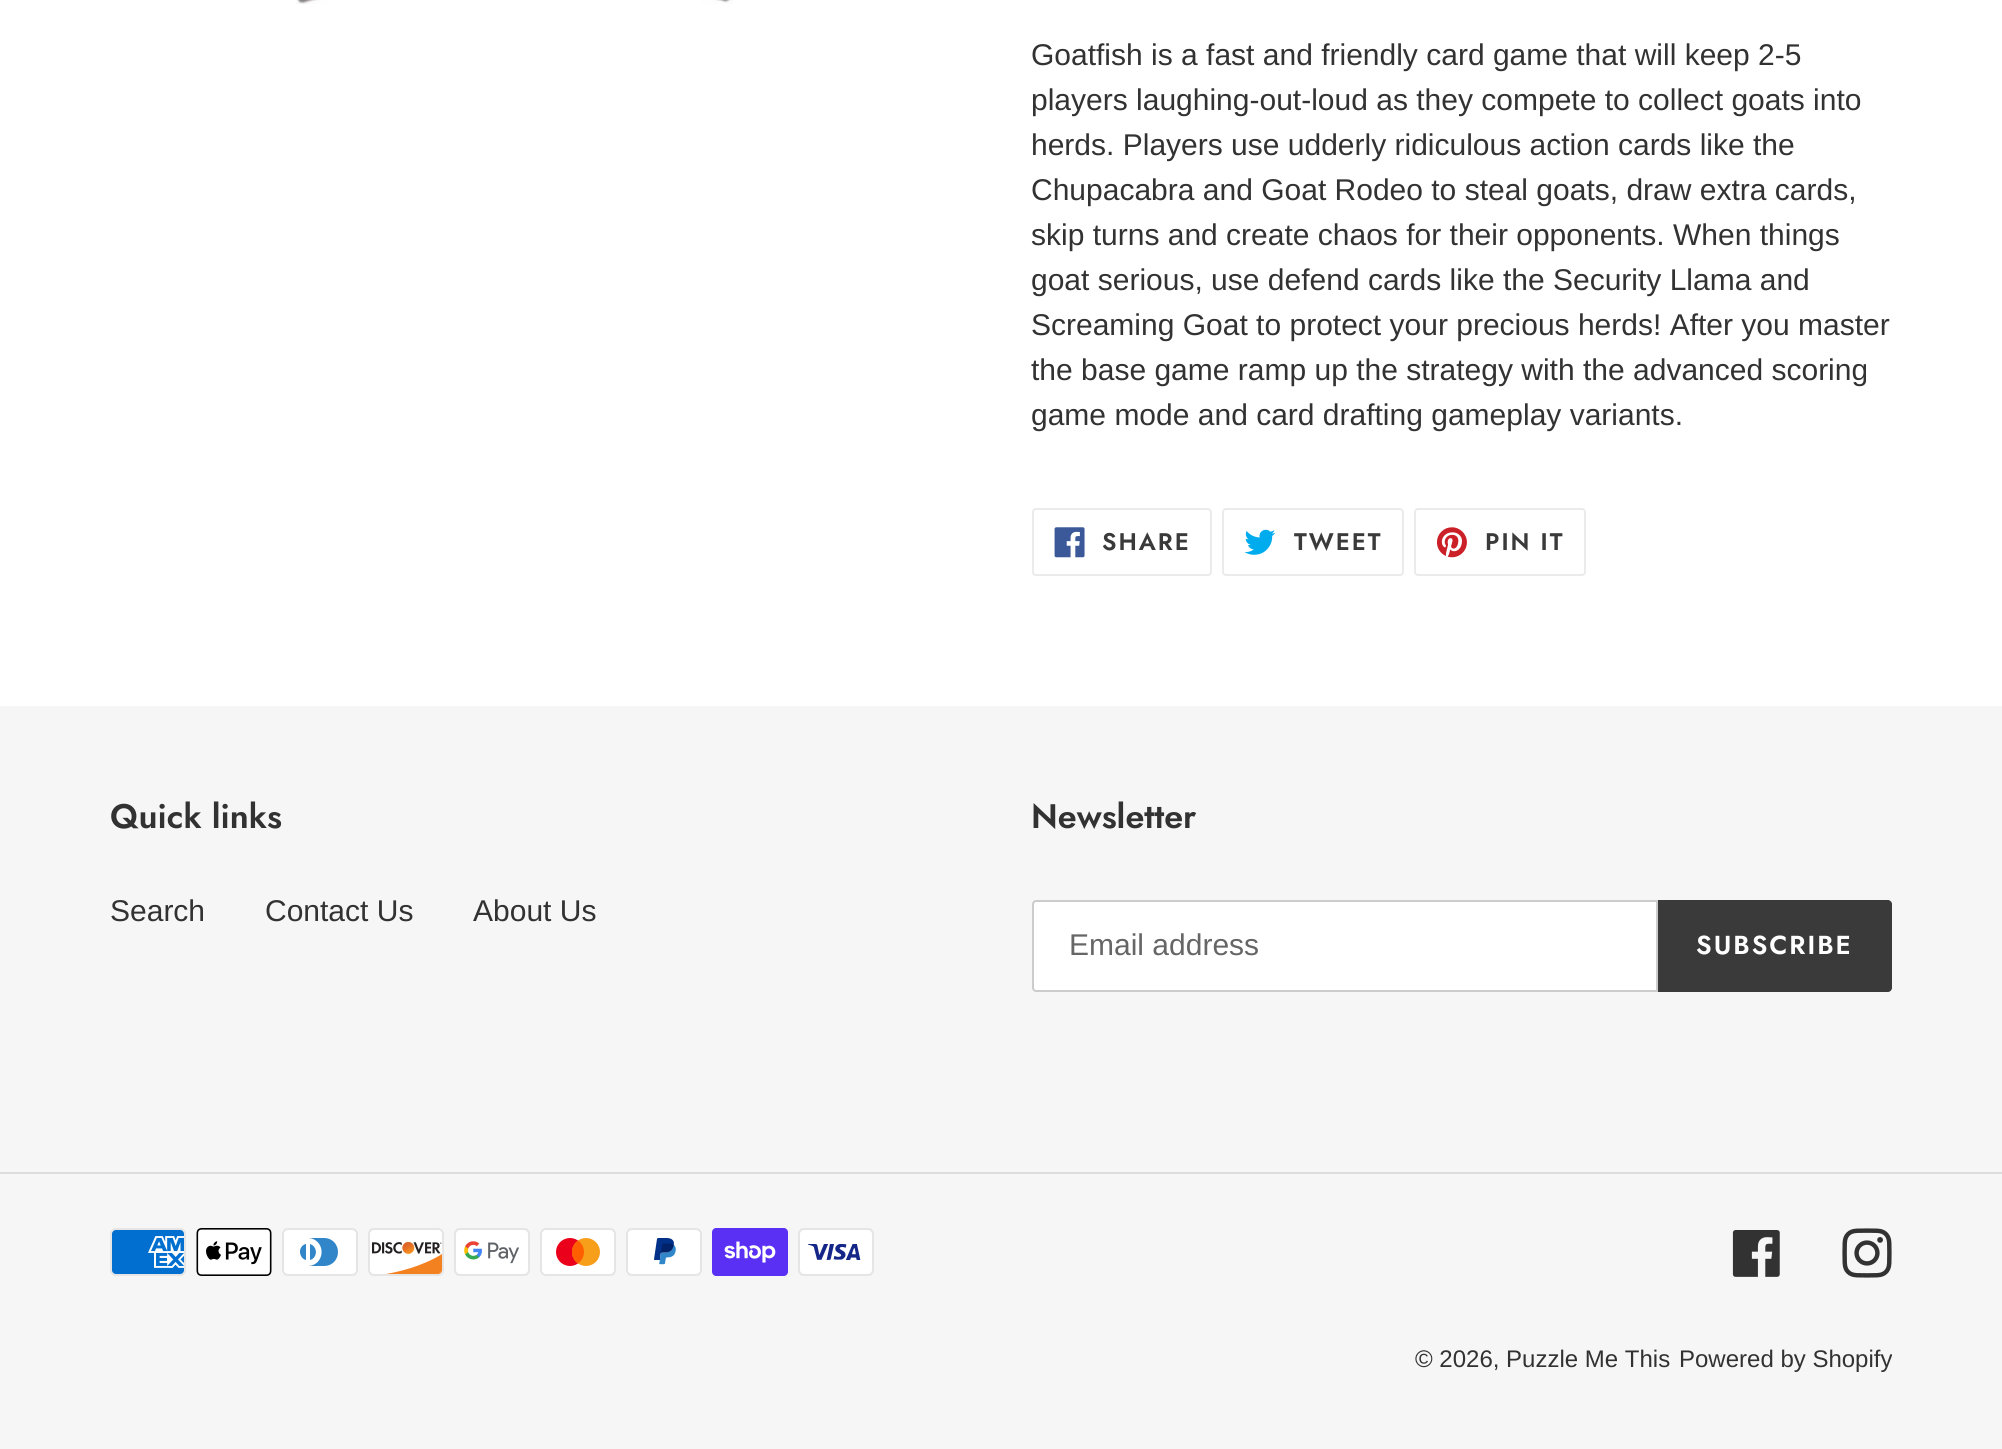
import math
import cairocffi as cairo

surface = cairo.ImageSurface(cairo.FORMAT_RGB24, 2002, 1449)
cr = cairo.Context(surface)
options = cairo.FontOptions()
options.set_hint_metrics(cairo.HINT_METRICS_OFF)
options.set_hint_style(cairo.HINT_STYLE_NONE)
cr.set_font_options(options)
cr.set_miter_limit(4)


def use_color(code):
    cr.set_source_rgb(*(v / 255 for v in bytes.fromhex(code[-6:])))


def spaced_text(x, y, s, letter, word):
    cr.move_to(x, y)
    for ch in s:
        cr.show_text(ch)
        cr.rel_move_to(letter + word * (ch == ' '), 0)


def round_rect(x, y, w, h, r):
    cr.new_sub_path()
    for i, (u, v) in enumerate([(x + w - r, y + h - r), (x + r, y + h - r), (x + r, y + r), (x + w - r, y + r)]):
        cr.arc(u, v, r, i * math.pi / 2, (i + 1) * math.pi / 2)
    cr.close_path()


def picture(path, x, y, w, h):
    cr.save()
    cr.set_source_surface(cairo.ImageSurface.create_from_png(path), x, y)
    cr.rectangle(x, y, w, h)
    cr.fill()
    cr.restore()


use_color("#ffffff")
cr.paint()
picture("img1.png", 296, 0, 437, 4)
cr.select_font_face("Liberation Sans")
cr.set_font_size(30)
use_color("#333232")
cr.move_to(1031, 65)
cr.show_text("Goatfish is a fast and friendly card game that will keep 2-5")
cr.move_to(1031, 110)
cr.show_text("players laughing-out-loud as they compete to collect goats into")
cr.move_to(1031, 155)
cr.show_text("herds. Players use udderly ridiculous action cards like the")
cr.move_to(1031, 200)
cr.show_text("Chupacabra and Goat Rodeo to steal goats, draw extra cards,")
cr.move_to(1031, 245)
cr.show_text("skip turns and create chaos for their opponents. When things")
cr.move_to(1031, 290)
cr.show_text("goat serious, use defend cards like the Security Llama and")
cr.move_to(1031, 335)
cr.show_text("Screaming Goat to protect your precious herds! After you master")
cr.move_to(1031, 380)
cr.show_text("the base game ramp up the strategy with the advanced scoring")
cr.move_to(1031, 425)
cr.show_text("game mode and card drafting gameplay variants.")
round_rect(1033, 509, 178, 66, 3)
use_color("#ebebeb")
cr.stroke()
picture("img2.png", 1054, 527, 31, 31)
cr.select_font_face("Jost SemiBold")
cr.set_font_size(24)
use_color("#3a3a3a")
spaced_text(1102, 550, "SHARE", 2, 0)
round_rect(1223, 509, 180, 66, 3)
use_color("#ebebeb")
cr.stroke()
picture("img3.png", 1244, 529, 32, 26)
use_color("#3a3a3a")
spaced_text(1294, 550, "TWEET", 2, 0)
round_rect(1415, 509, 170, 66, 3)
use_color("#ebebeb")
cr.stroke()
picture("img4.png", 1436, 527, 31, 31)
use_color("#3a3a3a")
spaced_text(1485, 550, "PIN IT", 2, 0)
use_color("#f6f6f6")
cr.rectangle(0, 706, 2002, 743)
cr.fill()
cr.set_font_size(34)
use_color("#333232")
cr.move_to(110, 828)
cr.show_text("Quick links")
cr.select_font_face("Liberation Sans")
cr.set_font_size(30)
cr.move_to(110, 921)
cr.show_text("Search")
cr.move_to(265, 921)
cr.show_text("Contact Us")
cr.move_to(473, 921)
cr.show_text("About Us")
cr.select_font_face("Jost SemiBold")
cr.set_font_size(34)
cr.move_to(1031, 828)
cr.show_text("Newsletter")
use_color("#ffffff")
cr.new_path()
cr.move_to(1036, 901)
cr.line_to(1657, 901)
cr.line_to(1657, 991)
cr.line_to(1036, 991)
cr.curve_to(1034.5, 991, 1033, 989.5, 1033, 988)
cr.line_to(1033, 904)
cr.curve_to(1033, 902.5, 1034.5, 901, 1036, 901)
cr.close_path()
cr.fill_preserve()
use_color("#cccccc")
cr.stroke()
cr.select_font_face("Liberation Sans")
cr.set_font_size(30)
use_color("#666666")
cr.move_to(1069, 955)
cr.show_text("Email address")
use_color("#3a3a3a")
cr.new_path()
cr.move_to(1658, 900)
cr.line_to(1888, 900)
cr.curve_to(1890, 900, 1892, 902, 1892, 904)
cr.line_to(1892, 988)
cr.curve_to(1892, 990, 1890, 992, 1888, 992)
cr.line_to(1658, 992)
cr.close_path()
cr.fill()
cr.select_font_face("Jost SemiBold")
cr.set_font_size(26)
use_color("#ffffff")
spaced_text(1696, 954, "SUBSCRIBE", 2, 0)
use_color("#dddddd")
cr.rectangle(0, 1172, 2002, 2)
cr.fill()
picture("img5.png", 110, 1228, 76, 48)
picture("img6.png", 196, 1228, 76, 48)
picture("img7.png", 282, 1228, 76, 48)
picture("img8.png", 368, 1228, 76, 48)
picture("img9.png", 454, 1228, 76, 48)
picture("img10.png", 540, 1228, 76, 48)
picture("img11.png", 626, 1228, 76, 48)
picture("img12.png", 712, 1228, 76, 48)
picture("img13.png", 798, 1228, 76, 48)
picture("img14.png", 1732, 1230, 48, 47)
picture("img15.png", 1842, 1228, 50, 50)
cr.select_font_face("Liberation Sans")
cr.set_font_size(24)
use_color("#333232")
cr.move_to(1415, 1367)
cr.show_text("© 2026, Puzzle Me This")
cr.move_to(1679, 1367)
cr.show_text("Powered by Shopify")
surface.write_to_png("result.png")
